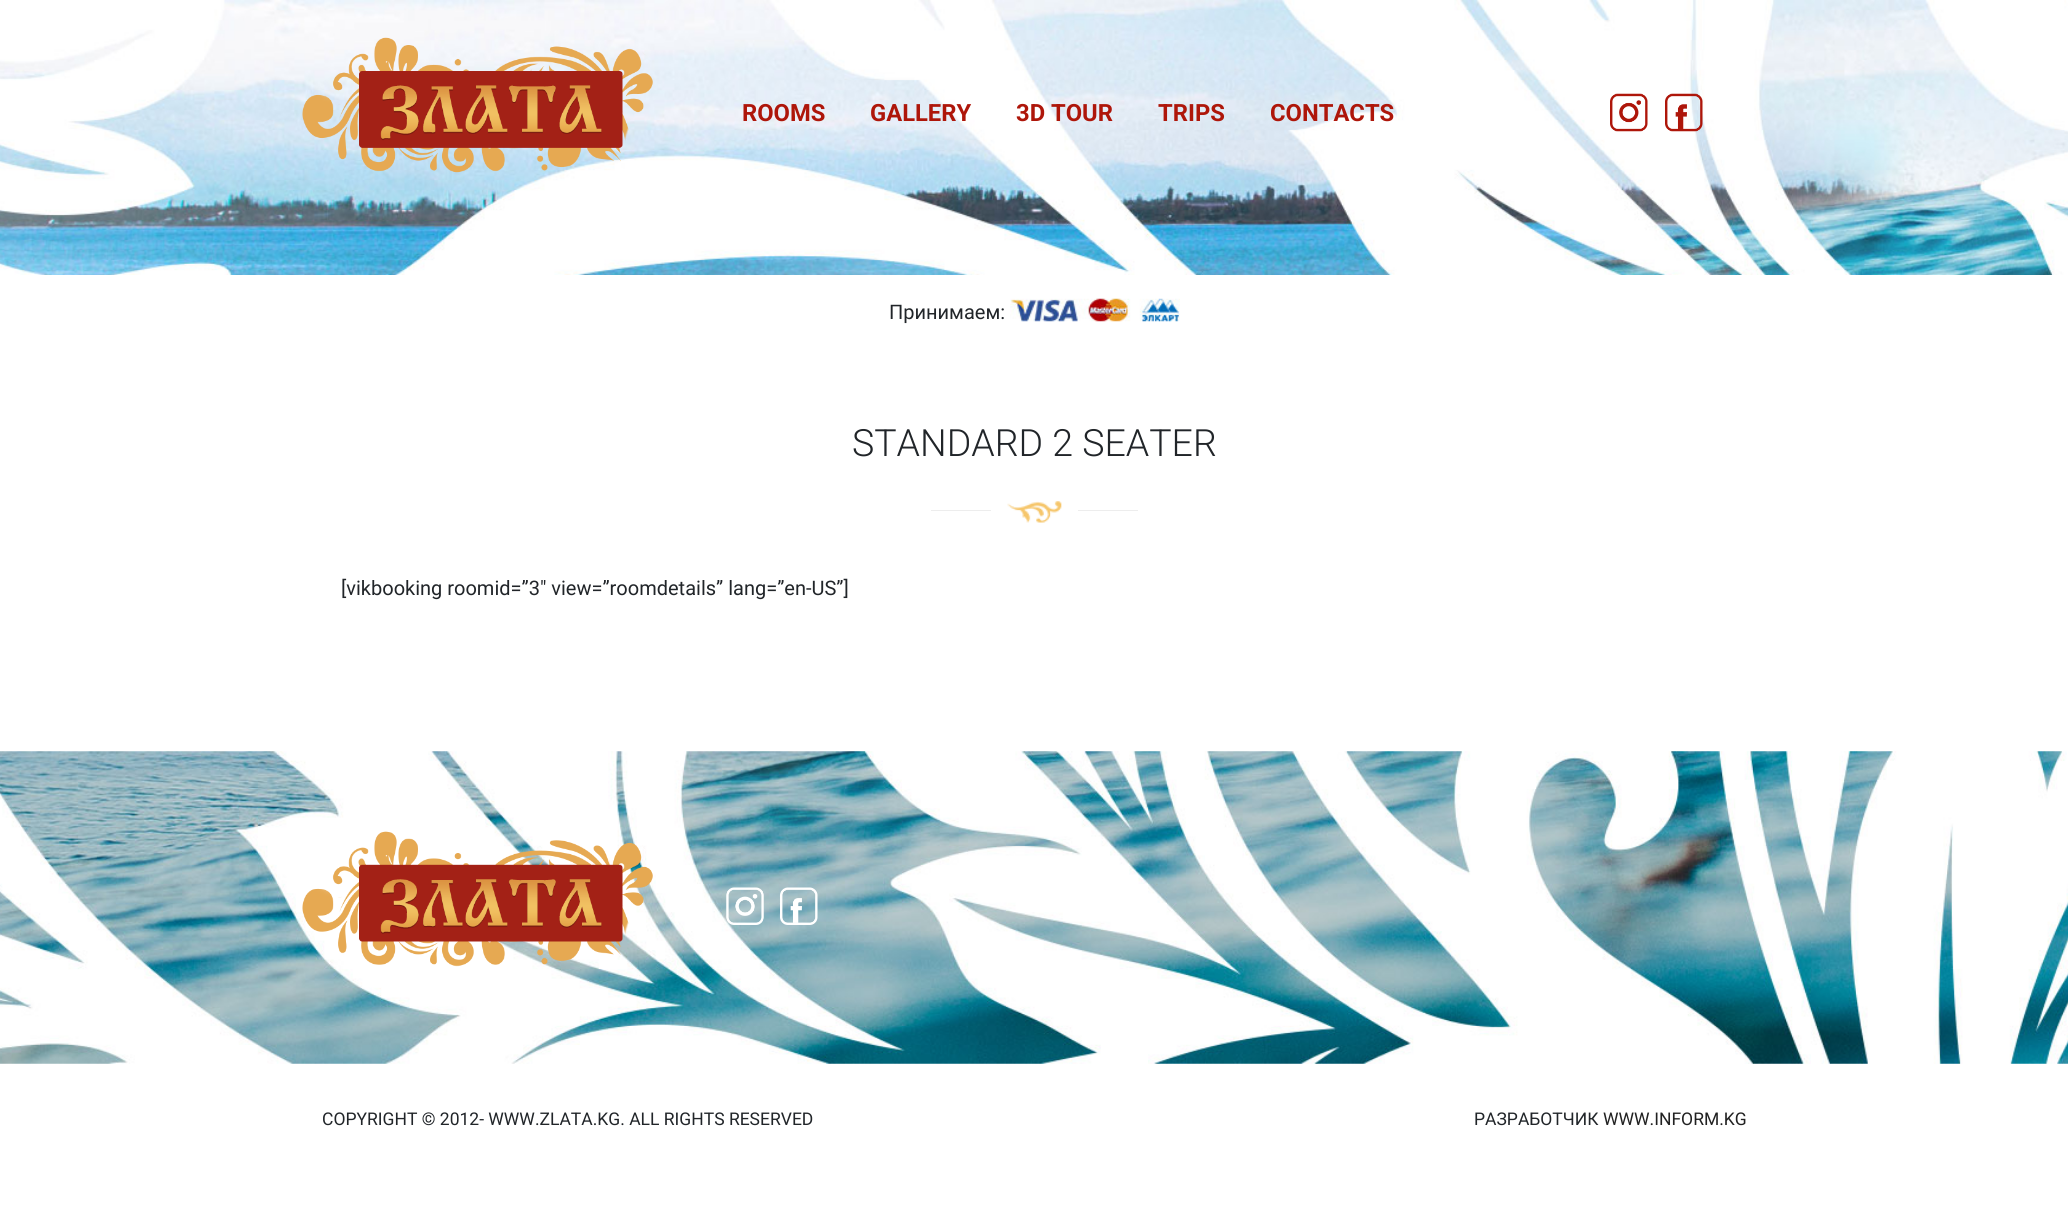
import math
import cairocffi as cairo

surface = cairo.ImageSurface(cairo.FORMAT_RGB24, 2068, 1207)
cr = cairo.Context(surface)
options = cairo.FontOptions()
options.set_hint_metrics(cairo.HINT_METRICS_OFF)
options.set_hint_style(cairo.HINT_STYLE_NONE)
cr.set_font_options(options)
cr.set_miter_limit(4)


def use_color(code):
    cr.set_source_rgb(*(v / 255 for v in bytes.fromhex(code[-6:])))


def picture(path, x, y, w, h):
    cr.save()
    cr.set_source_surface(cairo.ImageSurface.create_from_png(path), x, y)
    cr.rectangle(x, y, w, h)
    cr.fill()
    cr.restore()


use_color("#ffffff")
cr.paint()
picture("img1.png", 0, 0, 2068, 275)
picture("img2.png", 302, 37, 351, 136)
cr.select_font_face("Roboto", cairo.FONT_SLANT_NORMAL, cairo.FONT_WEIGHT_BOLD)
cr.set_font_size(23.75)
use_color("#ae160a")
cr.move_to(742, 121)
cr.show_text("ROOMS")
cr.move_to(870, 121)
cr.show_text("GALLERY")
cr.move_to(1016, 121)
cr.show_text("3D TOUR")
cr.move_to(1158, 121)
cr.show_text("TRIPS")
cr.move_to(1270, 121)
cr.show_text("CONTACTS")
picture("img3.png", 1610, 93, 38, 39)
picture("img4.png", 1665, 93, 38, 39)
cr.select_font_face("Roboto")
cr.set_font_size(20)
use_color("#212529")
cr.move_to(889, 319)
cr.show_text("Принимаем:")
picture("img5.png", 1010, 298, 170, 24)
cr.select_font_face("Roboto Light")
cr.set_font_size(37.5)
cr.move_to(852, 456)
cr.show_text("STANDARD 2 SEATER")
use_color("#ededed")
cr.rectangle(931, 510, 207, 1)
cr.fill()
use_color("#ffffff")
cr.rectangle(991, 510, 87, 1)
cr.fill()
picture("img6.png", 1007, 501, 55, 22)
cr.select_font_face("Roboto")
cr.set_font_size(20)
use_color("#212529")
cr.move_to(341, 595)
cr.show_text("[vikbooking roomid=”3″ view=”roomdetails” lang=”en-US”]")
picture("img7.png", 0, 751, 2068, 313)
picture("img8.png", 302, 831, 351, 136)
picture("img9.png", 726, 887, 38, 38)
picture("img10.png", 780, 887, 38, 38)
cr.set_font_size(17.5)
cr.move_to(322, 1125)
cr.show_text("COPYRIGHT © 2012- WWW.ZLATA.KG. ALL RIGHTS RESERVED")
cr.move_to(1474, 1125)
cr.show_text("РАЗРАБОТЧИК")
use_color("#212121")
cr.move_to(1603, 1125)
cr.show_text("WWW.INFORM.KG")
surface.write_to_png("result.png")
